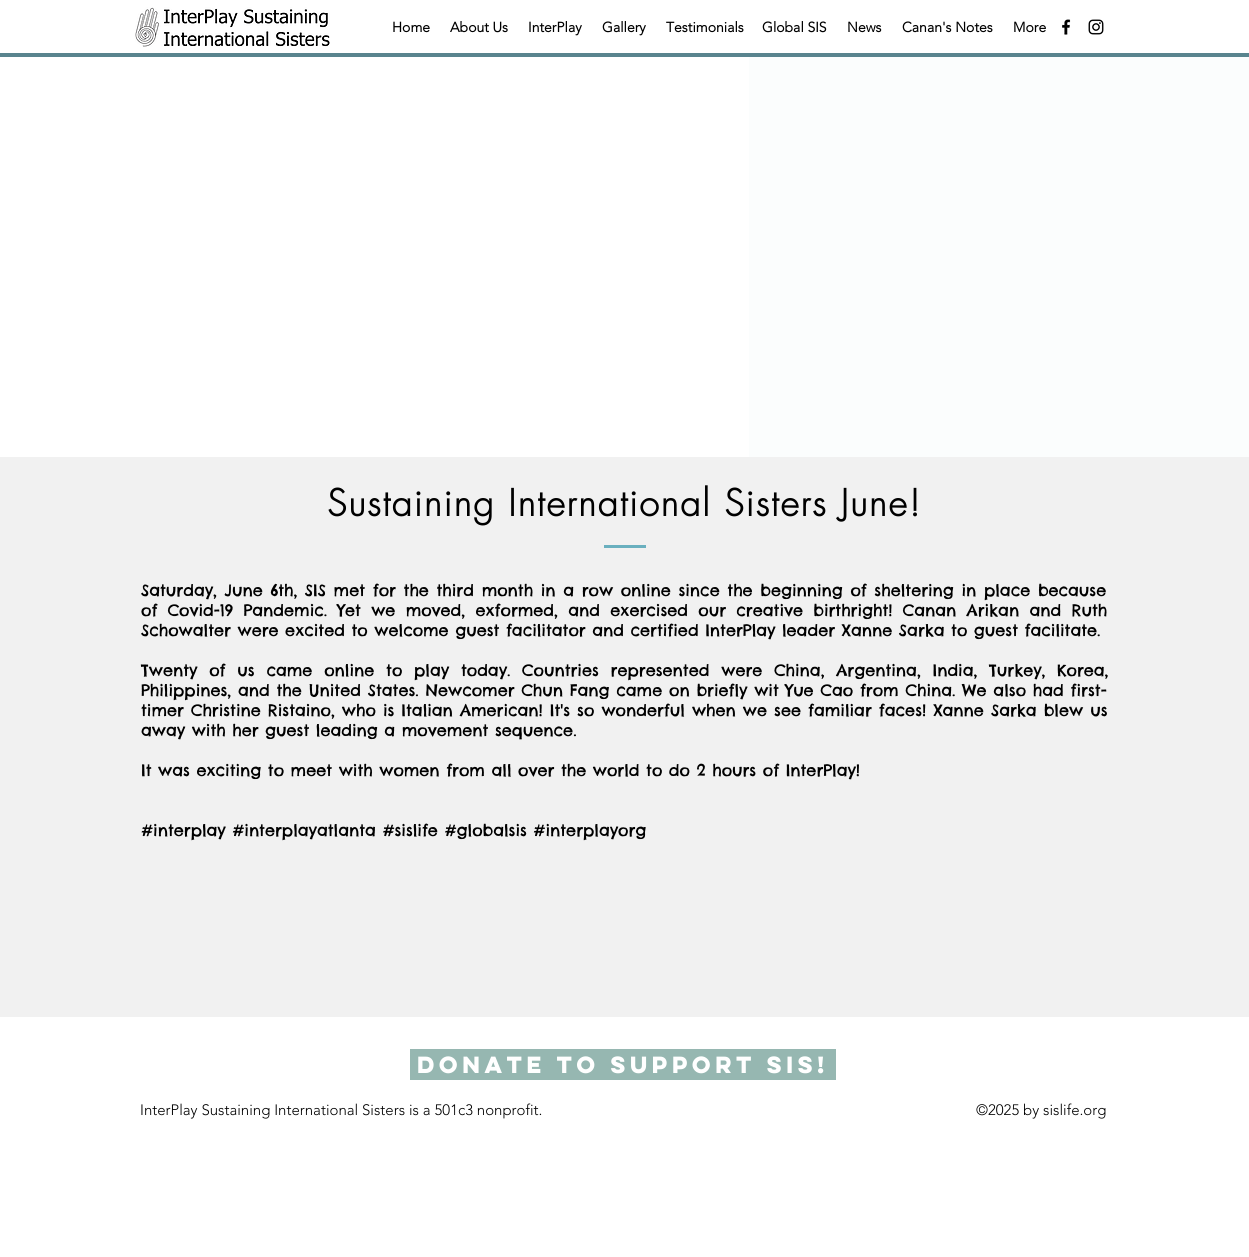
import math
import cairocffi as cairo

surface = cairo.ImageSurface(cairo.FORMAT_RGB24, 1249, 1257)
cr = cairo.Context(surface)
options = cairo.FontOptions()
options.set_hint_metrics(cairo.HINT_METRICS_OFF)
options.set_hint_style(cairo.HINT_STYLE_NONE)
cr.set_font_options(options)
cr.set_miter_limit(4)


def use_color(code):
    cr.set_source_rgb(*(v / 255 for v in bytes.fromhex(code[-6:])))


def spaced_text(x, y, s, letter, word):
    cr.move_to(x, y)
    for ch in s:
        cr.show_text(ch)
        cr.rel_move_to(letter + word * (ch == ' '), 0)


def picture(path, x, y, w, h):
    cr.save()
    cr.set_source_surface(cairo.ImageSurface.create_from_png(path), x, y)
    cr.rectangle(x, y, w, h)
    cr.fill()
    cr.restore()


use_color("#ffffff")
cr.paint()
picture("img1.png", 135, 7, 195, 40)
cr.select_font_face("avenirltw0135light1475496", cairo.FONT_SLANT_NORMAL, cairo.FONT_WEIGHT_BOLD)
cr.set_font_size(14)
use_color("#000000")
cr.move_to(392, 32)
cr.show_text("Home")
cr.move_to(450, 32)
cr.show_text("About Us")
cr.move_to(528, 32)
cr.show_text("InterPlay")
cr.move_to(602, 32)
cr.show_text("Gallery")
cr.move_to(666, 32)
cr.show_text("Testimonials")
cr.move_to(762, 32)
cr.show_text("Global SIS")
cr.move_to(847, 32)
cr.show_text("News")
cr.move_to(902, 32)
cr.show_text("Canan's Notes")
cr.move_to(1013, 32)
cr.show_text("More")
picture("img2.png", 1062, 19, 9, 16)
picture("img3.png", 1088, 19, 16, 16)
use_color("#59848e")
cr.rectangle(0, 53, 1249, 4)
cr.fill()
use_color("#fbfdfd")
cr.rectangle(749, 57, 500, 400)
cr.fill()
use_color("#f1f1f1")
cr.rectangle(0, 457, 1249, 560)
cr.fill()
cr.select_font_face("futura", cairo.FONT_SLANT_NORMAL, cairo.FONT_WEIGHT_BOLD)
cr.set_font_size(36)
use_color("#000000")
spaced_text(327, 516, "Sustaining International Sisters June!", 1.8, 0)
use_color("#6ab0bf")
cr.rectangle(604, 545, 42, 3)
cr.fill()
cr.select_font_face("Chelsea Market")
cr.set_font_size(16)
use_color("#000000")
spaced_text(141, 596, "Saturday, June 6th, SIS met for the third month in a row online since the beginning of sheltering in place because", 0, 1.1)
spaced_text(141, 616, "of Covid-19 Pandemic. Yet we moved, exformed, and exercised our creative birthright! Canan Arikan and Ruth", 0, 3.75)
cr.move_to(141, 636)
cr.show_text("Schowalter were excited to welcome guest facilitator and certified InterPlay leader Xanne Sarka to guest facilitate.")
spaced_text(141, 676, "Twenty of us came online to play today. Countries represented were China, Argentina, India, Turkey, Korea,", 0, 5.25)
spaced_text(141, 696, "Philippines, and the United States. Newcomer Chun Fang came on briefly wit Yue Cao from China. We also had first-", 0, 0.25)
spaced_text(141, 716, "timer Christine Ristaino, who is Italian American! It's so wonderful when we see familiar faces! Xanne Sarka blew us", 0, 0.5)
cr.move_to(141, 736)
cr.show_text("away with her guest leading a movement sequence.")
cr.move_to(141, 776)
cr.show_text("It was exciting to meet with women from all over the world to do 2 hours of InterPlay!")
cr.move_to(141, 836)
cr.show_text("#interplay #interplayatlanta #sislife #globalsis #interplayorg")
use_color("#96b7b1")
cr.rectangle(410, 1049, 426, 31)
cr.fill()
cr.select_font_face("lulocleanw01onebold", cairo.FONT_SLANT_NORMAL, cairo.FONT_WEIGHT_BOLD)
cr.set_font_size(21)
use_color("#ffffff")
cr.move_to(417, 1073)
cr.show_text("Donate to support SIS!")
cr.select_font_face("avenirltw0135light1475496 Light")
cr.set_font_size(15)
use_color("#000000")
cr.move_to(140, 1115)
cr.show_text("InterPlay Sustaining International Sisters is a 501c3 nonprofit.")
cr.move_to(976, 1115)
cr.show_text("©2025 by sislife.org")
surface.write_to_png("result.png")
